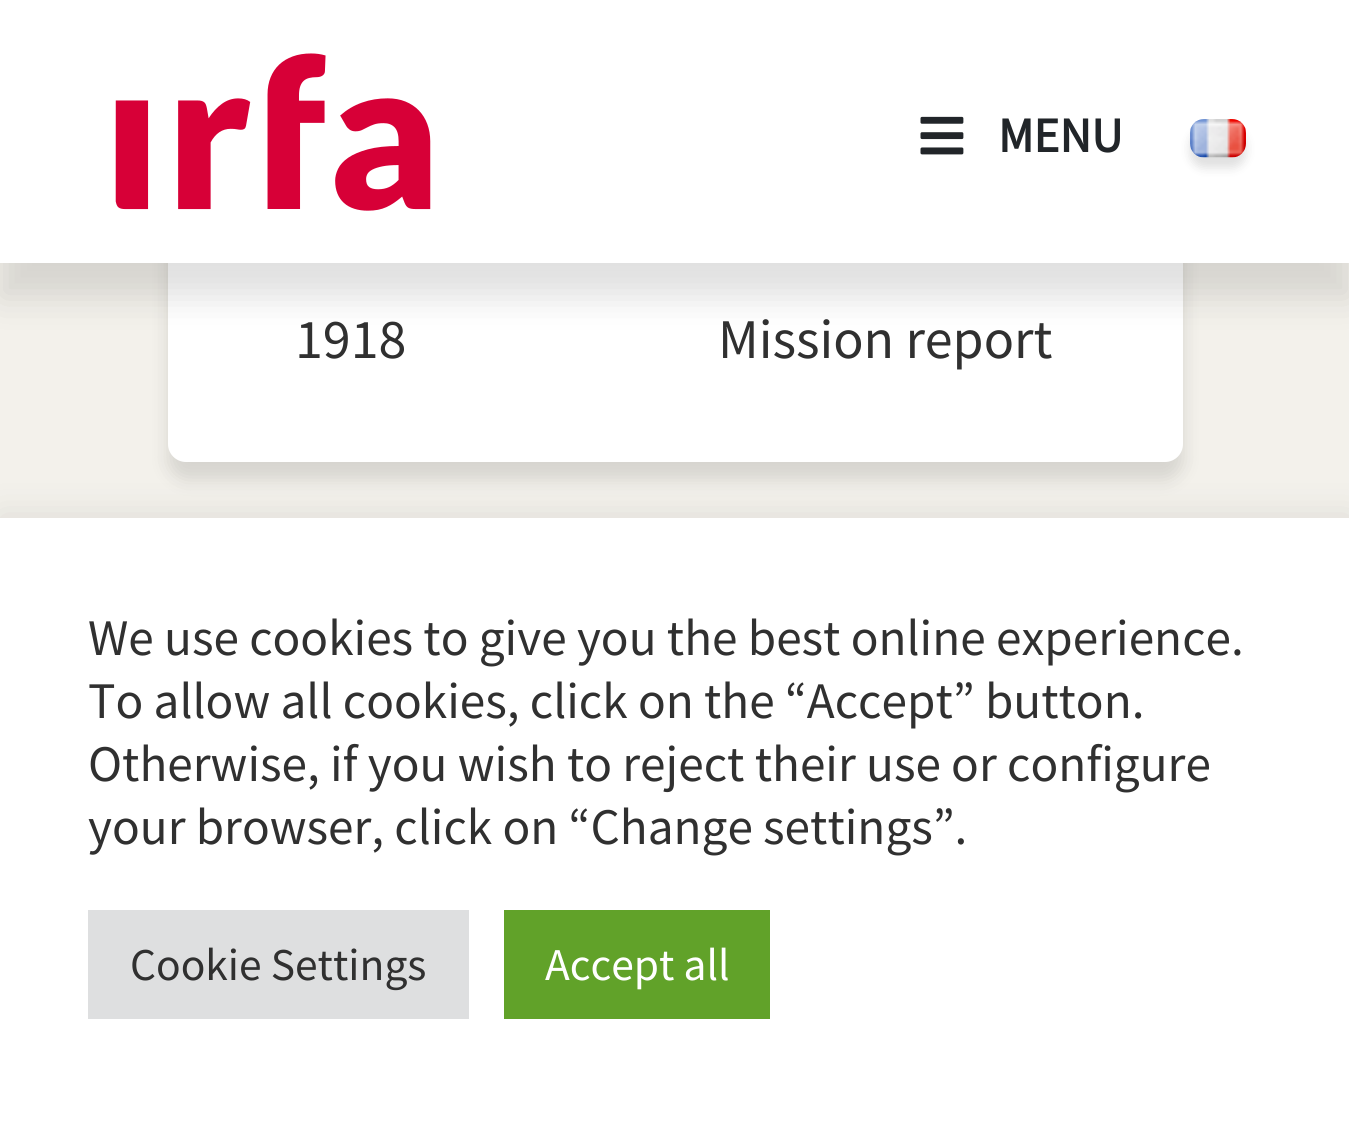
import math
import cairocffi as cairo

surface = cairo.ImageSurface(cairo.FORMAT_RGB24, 1349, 1121)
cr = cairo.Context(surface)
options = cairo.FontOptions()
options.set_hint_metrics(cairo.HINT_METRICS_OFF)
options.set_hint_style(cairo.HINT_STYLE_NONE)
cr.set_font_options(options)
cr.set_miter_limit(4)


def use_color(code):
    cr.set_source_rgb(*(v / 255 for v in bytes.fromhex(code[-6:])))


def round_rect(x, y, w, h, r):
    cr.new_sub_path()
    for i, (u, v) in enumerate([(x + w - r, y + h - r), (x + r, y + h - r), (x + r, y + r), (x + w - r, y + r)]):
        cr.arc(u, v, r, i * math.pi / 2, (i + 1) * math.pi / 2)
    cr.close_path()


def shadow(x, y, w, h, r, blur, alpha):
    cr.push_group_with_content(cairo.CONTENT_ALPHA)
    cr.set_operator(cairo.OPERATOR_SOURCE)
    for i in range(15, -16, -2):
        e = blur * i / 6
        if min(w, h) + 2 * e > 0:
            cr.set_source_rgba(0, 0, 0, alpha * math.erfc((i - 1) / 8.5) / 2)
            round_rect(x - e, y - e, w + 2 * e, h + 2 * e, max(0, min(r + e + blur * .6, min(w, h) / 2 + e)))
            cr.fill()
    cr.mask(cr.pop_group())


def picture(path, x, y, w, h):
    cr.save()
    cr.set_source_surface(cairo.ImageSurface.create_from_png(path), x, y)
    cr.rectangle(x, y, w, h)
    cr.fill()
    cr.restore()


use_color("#f3f1eb")
cr.paint()
use_color("#303030")
shadow(168, -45, 1015, 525, 18, 9, 0.15)
use_color("#ffffff")
round_rect(168, -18, 1015, 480, 18)
cr.fill()
use_color("#303030")
shadow(0, 35, 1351, 263, 0, 17.5, 0.15)
use_color("#ffffff")
cr.rectangle(0, 0, 1349, 263)
cr.fill()
picture("img1.png", 115, 53, 316, 158)
picture("img2.png", 920, 116, 44, 39)
cr.select_font_face("Source Sans Pro", cairo.FONT_SLANT_NORMAL, cairo.FONT_WEIGHT_BOLD)
cr.set_font_size(49)
use_color("#212529")
cr.move_to(998, 152)
cr.show_text("MENU")
use_color("#303030")
shadow(1190, 130, 56, 38, 14, 5, 0.15)
picture("img3.png", 1190, 119, 56, 39)
cr.select_font_face("Source Sans Pro")
cr.set_font_size(56)
use_color("#303030")
cr.move_to(295, 358)
cr.show_text("1918")
cr.move_to(718, 358)
cr.show_text("Mission report")
use_color("#acabab")
shadow(0, 515, 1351, 605, 0, 17.5, 0.3)
use_color("#ffffff")
cr.rectangle(0, 518, 1349, 603)
cr.fill()
cr.set_font_size(51.3)
use_color("#303030")
cr.move_to(88, 655)
cr.show_text("We use cookies to give you the best online experience.")
cr.move_to(88, 718)
cr.show_text("To allow all cookies, click on the “Accept” button.")
cr.move_to(88, 781)
cr.show_text("Otherwise, if you wish to reject their use or configure")
cr.move_to(88, 844)
cr.show_text("your browser, click on “Change settings”.")
use_color("#dedfe0")
cr.rectangle(88, 910, 381, 109)
cr.fill()
cr.set_font_size(45.5)
use_color("#303030")
cr.move_to(130, 980)
cr.show_text("Cookie Settings")
use_color("#61a229")
cr.rectangle(504, 910, 266, 109)
cr.fill()
use_color("#ffffff")
cr.move_to(545, 980)
cr.show_text("Accept all")
surface.write_to_png("result.png")
